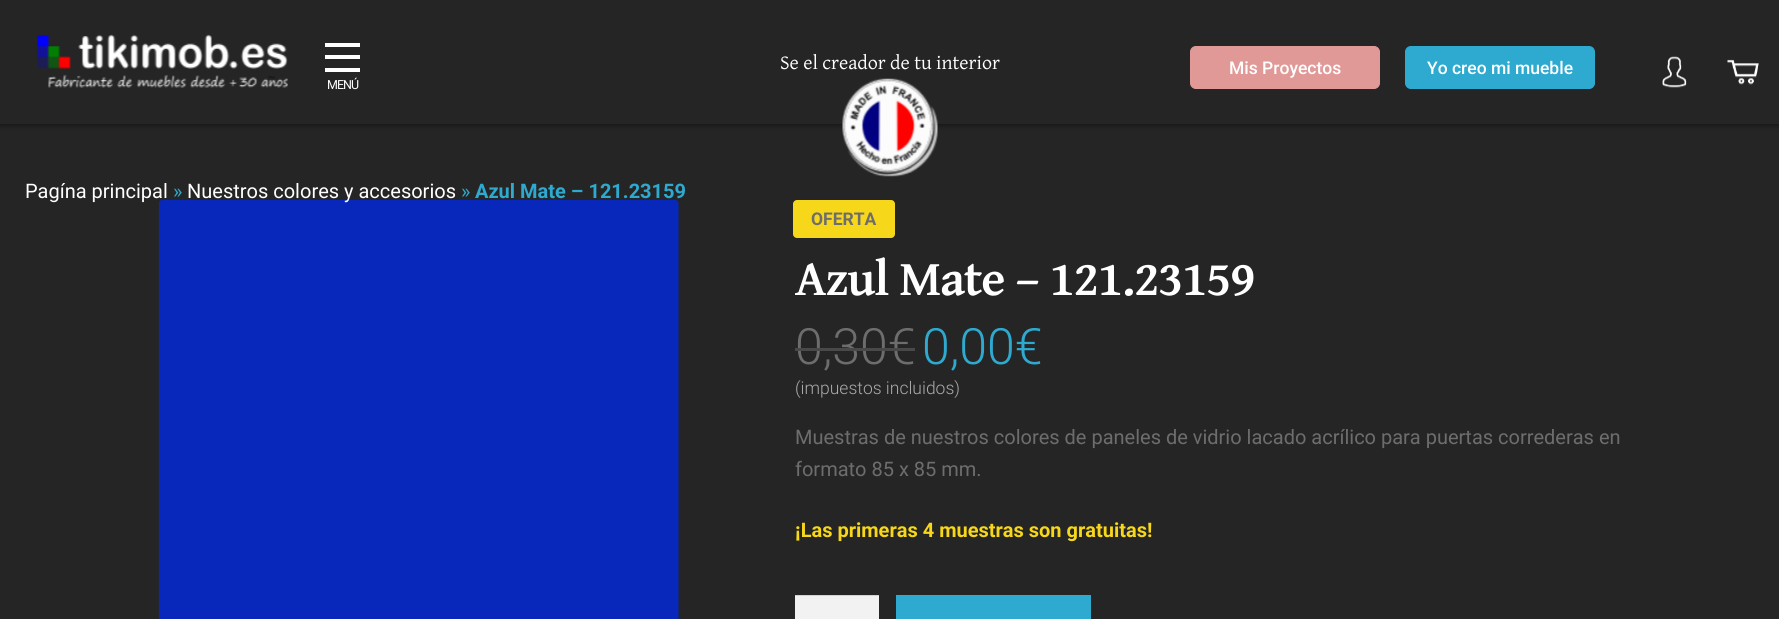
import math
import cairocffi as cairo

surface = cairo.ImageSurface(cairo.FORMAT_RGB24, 1779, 619)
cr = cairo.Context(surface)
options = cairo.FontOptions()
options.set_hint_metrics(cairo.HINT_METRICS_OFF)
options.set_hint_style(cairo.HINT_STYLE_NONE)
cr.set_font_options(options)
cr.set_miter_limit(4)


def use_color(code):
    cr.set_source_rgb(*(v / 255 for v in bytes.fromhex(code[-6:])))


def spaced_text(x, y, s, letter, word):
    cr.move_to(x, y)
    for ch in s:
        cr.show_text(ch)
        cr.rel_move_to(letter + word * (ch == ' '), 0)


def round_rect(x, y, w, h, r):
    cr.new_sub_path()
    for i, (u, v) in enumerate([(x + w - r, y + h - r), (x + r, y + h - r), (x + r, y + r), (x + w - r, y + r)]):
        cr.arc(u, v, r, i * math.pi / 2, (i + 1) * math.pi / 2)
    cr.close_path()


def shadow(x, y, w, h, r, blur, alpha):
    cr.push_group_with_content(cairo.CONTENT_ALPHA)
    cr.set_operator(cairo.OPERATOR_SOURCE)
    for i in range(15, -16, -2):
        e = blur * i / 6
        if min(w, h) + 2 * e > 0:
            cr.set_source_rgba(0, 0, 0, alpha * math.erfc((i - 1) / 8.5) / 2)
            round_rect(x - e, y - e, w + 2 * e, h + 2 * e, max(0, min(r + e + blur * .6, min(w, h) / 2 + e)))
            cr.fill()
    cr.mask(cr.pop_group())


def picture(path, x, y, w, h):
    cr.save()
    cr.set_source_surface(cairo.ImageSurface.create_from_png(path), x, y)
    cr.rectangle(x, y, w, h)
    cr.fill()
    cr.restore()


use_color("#252525")
cr.paint()
use_color("#000000")
shadow(-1, -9, 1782, 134, 0, 3, 0.5)
use_color("#252525")
cr.rectangle(0, 0, 1779, 124)
cr.fill()
picture("img1.png", 37, 34, 251, 54)
cr.select_font_face("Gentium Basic")
cr.set_font_size(20)
use_color("#ffffff")
cr.move_to(780, 69)
cr.show_text("Se el creador de tu interior")
picture("img2.png", 842, 78, 96, 99)
use_color("#e19998")
round_rect(1190.5, 46.5, 189, 42, 5.5)
cr.fill_preserve()
cr.set_line_width(1)
cr.stroke()
cr.select_font_face("Roboto Medium")
cr.set_font_size(17.5)
use_color("#ffffff")
cr.move_to(1229, 74)
cr.show_text("Mis Proyectos")
use_color("#2eaad0")
round_rect(1405.5, 46.5, 189, 42, 5.5)
cr.fill_preserve()
cr.stroke()
use_color("#ffffff")
cr.move_to(1427, 74)
cr.show_text("Yo creo mi mueble")
picture("img3.png", 1662, 56, 25, 32)
picture("img4.png", 1727, 59, 32, 26)
cr.rectangle(325, 43, 35, 4)
cr.fill()
cr.rectangle(325, 55, 35, 4)
cr.fill()
cr.rectangle(325, 68, 35, 4)
cr.fill()
cr.select_font_face("Roboto")
cr.set_font_size(12.5)
spaced_text(327, 89, "MENÚ", -1, 0)
picture("img5.png", 158, 200, 521, 419)
cr.set_font_size(20)
cr.move_to(25, 198)
cr.show_text("Pagína principal")
use_color("#2eaad0")
cr.move_to(173, 198)
cr.show_text("»")
use_color("#ffffff")
cr.move_to(187, 198)
cr.show_text("Nuestros colores y accesorios")
use_color("#2eaad0")
cr.move_to(461, 198)
cr.show_text("»")
cr.select_font_face("Roboto", cairo.FONT_SLANT_NORMAL, cairo.FONT_WEIGHT_BOLD)
cr.move_to(475, 198)
cr.show_text("Azul Mate – 121.23159")
use_color("#f7d719")
round_rect(793, 200, 102, 38, 4)
cr.fill()
cr.set_font_size(17.5)
use_color("#6d6d6d")
cr.move_to(811, 225)
cr.show_text("OFERTA")
cr.select_font_face("Gentium Basic", cairo.FONT_SLANT_NORMAL, cairo.FONT_WEIGHT_BOLD)
cr.set_font_size(50)
use_color("#ffffff")
spaced_text(795, 295, "Azul Mate – 121.23159", -1.25, 0)
cr.select_font_face("Roboto Light")
use_color("#6d6d6d")
cr.move_to(795, 364)
cr.show_text("0,30€")
use_color("#494949")
cr.rectangle(795, 348, 120, 3)
cr.fill()
use_color("#2eaad0")
cr.move_to(922, 364)
cr.show_text("0,00€")
cr.set_font_size(17.5)
use_color("#aaaaaa")
cr.move_to(795, 394)
cr.show_text("(impuestos incluidos)")
cr.select_font_face("Roboto")
cr.set_font_size(20)
use_color("#6d6d6d")
cr.move_to(795, 444)
cr.show_text("Muestras de nuestros colores de paneles de vidrio lacado acrílico para puertas correderas en")
cr.move_to(795, 476)
cr.show_text("formato 85 x 85 mm.")
cr.select_font_face("Roboto", cairo.FONT_SLANT_NORMAL, cairo.FONT_WEIGHT_BOLD)
use_color("#f7d719")
cr.move_to(795, 537)
cr.show_text("¡Las primeras 4 muestras son gratuitas!")
use_color("#f2f2f2")
cr.rectangle(795, 596, 84, 23)
cr.fill()
use_color("#d4d4d4")
cr.rectangle(795, 595, 84, 1)
cr.fill()
use_color("#2eaad0")
cr.rectangle(896, 595, 195, 24)
cr.fill()
surface.write_to_png("result.png")
